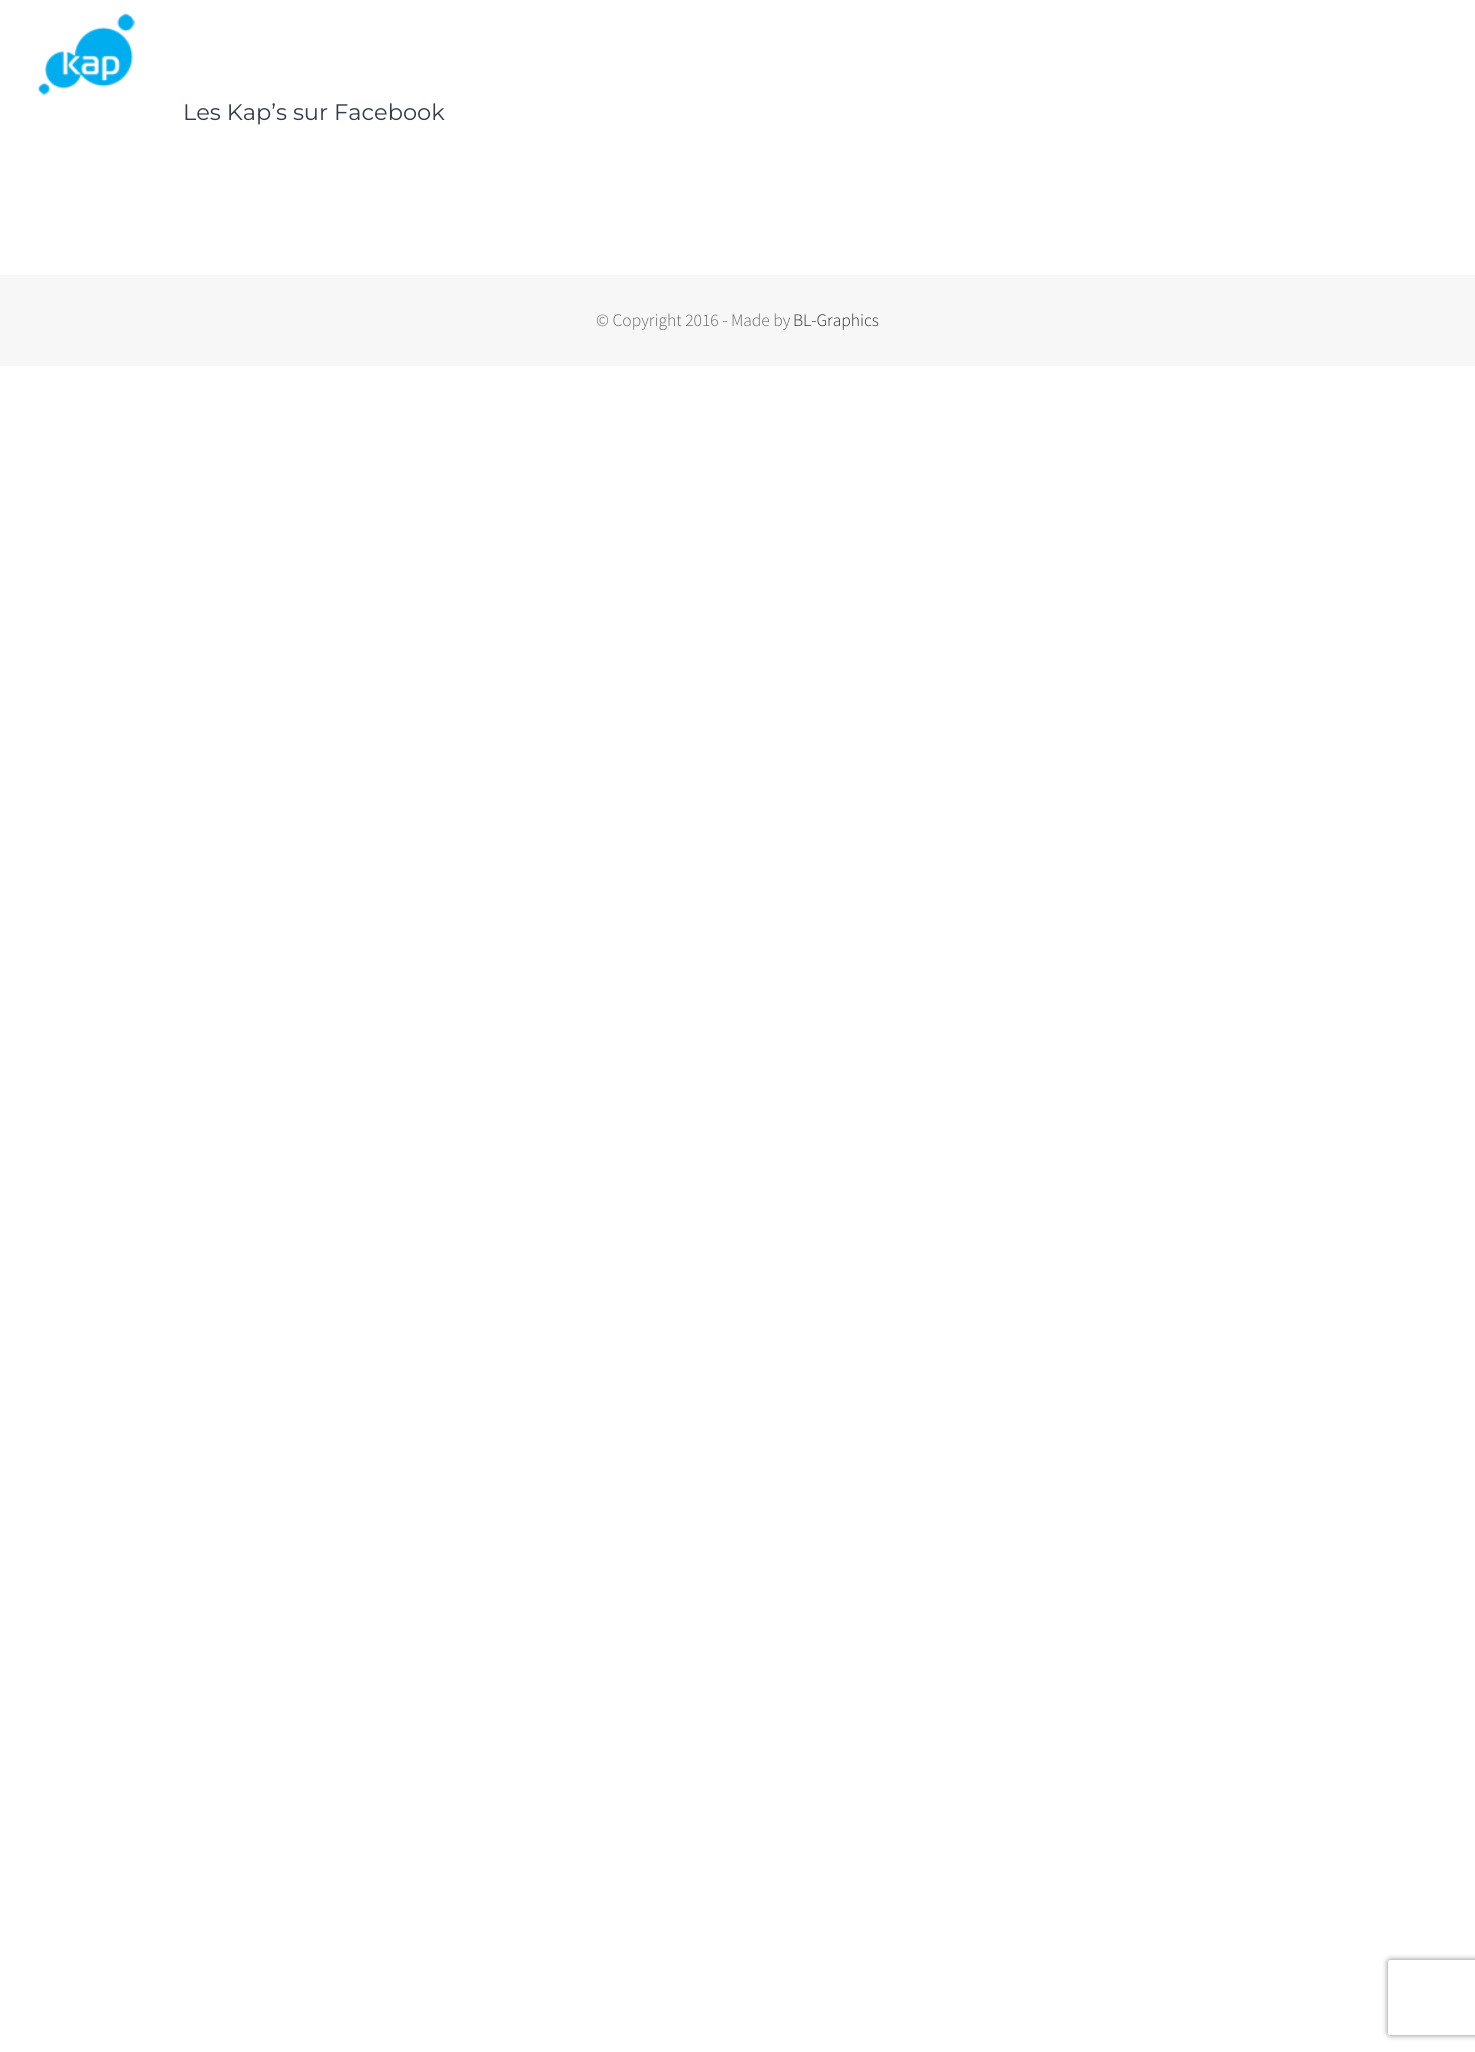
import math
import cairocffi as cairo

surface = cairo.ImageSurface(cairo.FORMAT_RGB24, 1475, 2052)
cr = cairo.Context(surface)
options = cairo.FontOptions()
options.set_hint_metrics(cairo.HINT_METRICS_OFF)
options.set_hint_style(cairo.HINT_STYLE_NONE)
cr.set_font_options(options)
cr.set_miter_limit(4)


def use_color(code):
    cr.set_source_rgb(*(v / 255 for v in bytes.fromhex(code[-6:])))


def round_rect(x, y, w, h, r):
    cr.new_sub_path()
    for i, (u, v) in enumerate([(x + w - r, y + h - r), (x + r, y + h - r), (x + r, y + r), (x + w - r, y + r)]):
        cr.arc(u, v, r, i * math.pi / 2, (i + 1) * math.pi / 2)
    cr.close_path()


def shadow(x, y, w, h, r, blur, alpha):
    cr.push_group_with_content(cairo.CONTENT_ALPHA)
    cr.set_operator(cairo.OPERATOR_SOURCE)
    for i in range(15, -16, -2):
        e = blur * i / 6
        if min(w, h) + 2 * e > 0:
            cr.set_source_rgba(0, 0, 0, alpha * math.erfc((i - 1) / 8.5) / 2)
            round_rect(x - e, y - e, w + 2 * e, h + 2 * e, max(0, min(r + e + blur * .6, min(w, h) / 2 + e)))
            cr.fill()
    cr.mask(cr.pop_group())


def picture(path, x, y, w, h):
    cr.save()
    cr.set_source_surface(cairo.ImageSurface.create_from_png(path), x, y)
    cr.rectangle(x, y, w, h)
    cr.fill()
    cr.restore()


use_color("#ffffff")
cr.paint()
picture("img1.png", 38, 13, 98, 83)
cr.select_font_face("Montserrat Thin")
cr.set_font_size(22.5)
use_color("#333c4e")
cr.move_to(183, 120)
cr.show_text("Les Kap’s sur Facebook")
use_color("#f7f7f7")
cr.rectangle(0, 275, 1475, 91)
cr.fill()
cr.select_font_face("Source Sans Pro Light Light")
cr.set_font_size(17.5)
use_color("#666666")
cr.move_to(596, 326)
cr.show_text("© Copyright 2016 - Made by")
use_color("#2b2b2b")
cr.move_to(793, 326)
cr.show_text("BL-Graphics")
cr.save()
cr.set_fill_rule(cairo.FILL_RULE_EVEN_ODD)
cr.new_path()
cr.move_to(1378, 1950)
cr.line_to(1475, 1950)
cr.line_to(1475, 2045)
cr.line_to(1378, 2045)
cr.close_path()
cr.move_to(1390.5, 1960)
cr.line_to(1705.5, 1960)
cr.curve_to(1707, 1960, 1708, 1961, 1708, 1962.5)
cr.line_to(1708, 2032.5)
cr.curve_to(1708, 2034, 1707, 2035, 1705.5, 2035)
cr.line_to(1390.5, 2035)
cr.curve_to(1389, 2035, 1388, 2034, 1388, 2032.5)
cr.line_to(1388, 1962.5)
cr.curve_to(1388, 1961, 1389, 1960, 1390.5, 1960)
cr.close_path()
cr.clip()
use_color("#808080")
shadow(1388, 1960, 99, 75, 2.5, 3, 1)
cr.restore()
surface.write_to_png("result.png")
